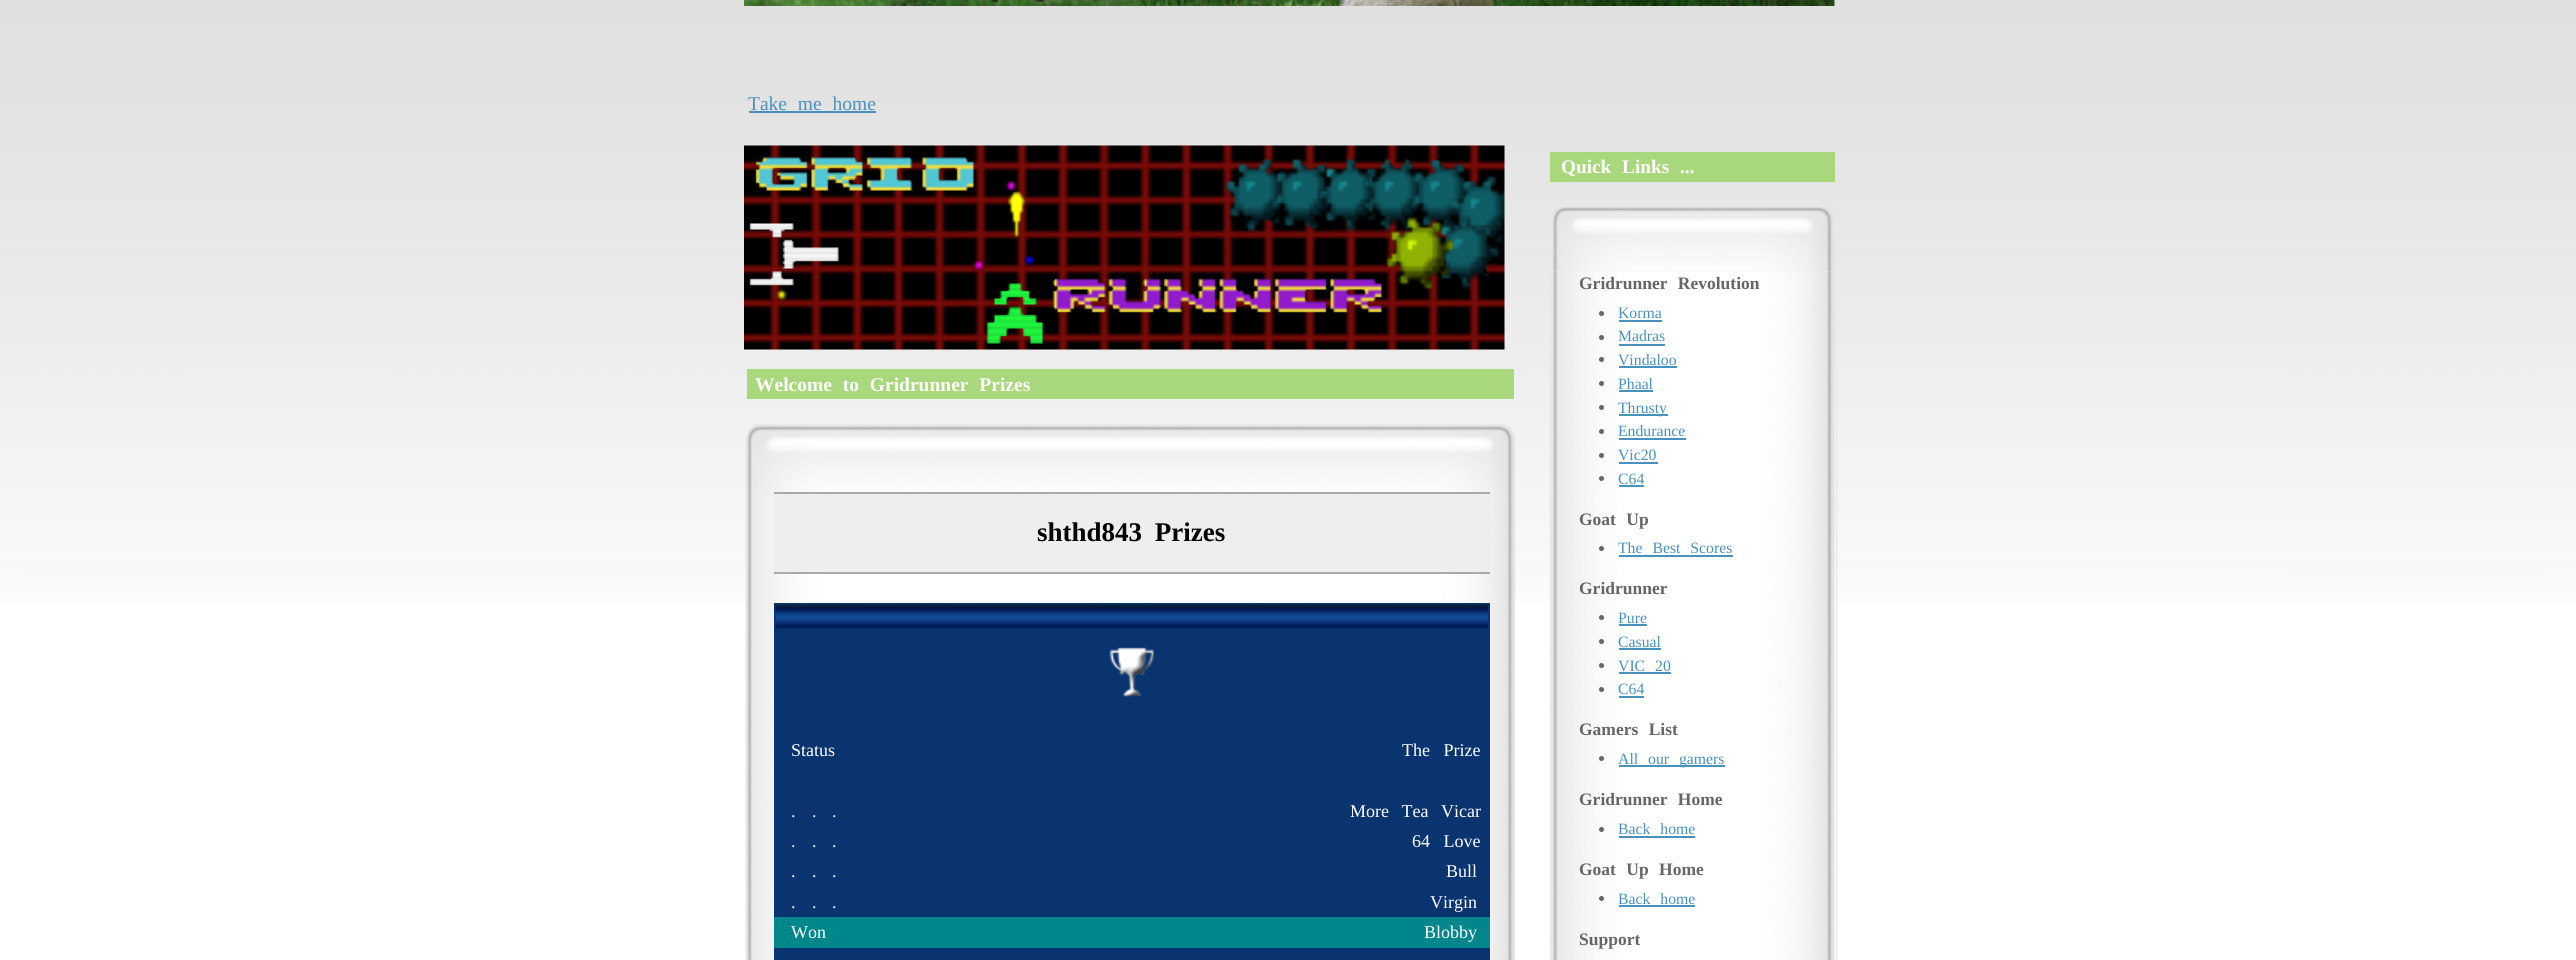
import math
import cairocffi as cairo

surface = cairo.ImageSurface(cairo.FORMAT_RGB24, 2576, 960)
cr = cairo.Context(surface)
options = cairo.FontOptions()
options.set_hint_metrics(cairo.HINT_METRICS_OFF)
options.set_hint_style(cairo.HINT_STYLE_NONE)
cr.set_font_options(options)
cr.set_miter_limit(4)


def use_color(code):
    cr.set_source_rgb(*(v / 255 for v in bytes.fromhex(code[-6:])))


def spaced_text(x, y, s, letter, word):
    cr.move_to(x, y)
    for ch in s:
        cr.show_text(ch)
        cr.rel_move_to(letter + word * (ch == ' '), 0)


def picture(path, x, y, w, h):
    cr.save()
    cr.set_source_surface(cairo.ImageSurface.create_from_png(path), x, y)
    cr.rectangle(x, y, w, h)
    cr.fill()
    cr.restore()


use_color("#ffffff")
cr.paint()
picture("img1.png", 0, 0, 2576, 601)
picture("img2.png", 744, 0, 1091, 6)
cr.select_font_face("Liberation Serif")
cr.set_font_size(19.5)
use_color("#4991bd")
spaced_text(748, 110, "Take me home", 0, 6)
cr.rectangle(749, 111, 127, 2)
cr.fill()
picture("img3.png", 744, 145, 761, 205)
use_color("#a9d87c")
cr.rectangle(747, 369, 767, 30)
cr.fill()
cr.select_font_face("Liberation Serif", cairo.FONT_SLANT_NORMAL, cairo.FONT_WEIGHT_BOLD)
use_color("#ffffff")
spaced_text(755, 391, "Welcome to Gridrunner Prizes", 0, 6)
picture("img4.png", 745, 424, 770, 68)
picture("img5.png", 745, 492, 771, 468)
use_color("#eeeeee")
cr.rectangle(774, 494, 716, 78)
cr.fill()
use_color("#aaaaaa")
cr.rectangle(774, 492, 716, 2)
cr.fill()
cr.rectangle(774, 572, 716, 2)
cr.fill()
cr.set_font_size(27)
use_color("#000000")
spaced_text(1037, 541, "shthd843 Prizes", 0, 6)
use_color("#0a3470")
cr.rectangle(774, 603, 716, 132)
cr.fill()
picture("img6.png", 775, 604, 713, 25)
picture("img7.png", 1109, 647, 45, 50)
cr.rectangle(774, 735, 716, 62)
cr.fill()
cr.select_font_face("Liberation Serif")
cr.set_font_size(18)
use_color("#ffffff")
cr.move_to(791, 756)
cr.show_text("Status")
spaced_text(1402, 756, "The Prize", 0, 9)
use_color("#0a3470")
cr.rectangle(774, 797, 716, 30)
cr.fill()
use_color("#ffffff")
cr.move_to(791, 817)
cr.show_text(".")
cr.move_to(812, 817)
cr.show_text(".")
cr.move_to(832, 817)
cr.show_text(".")
spaced_text(1350, 817, "More Tea Vicar", 0, 8)
use_color("#0a3470")
cr.rectangle(774, 827, 716, 30)
cr.fill()
use_color("#ffffff")
cr.move_to(791, 847)
cr.show_text(".")
cr.move_to(812, 847)
cr.show_text(".")
cr.move_to(832, 847)
cr.show_text(".")
spaced_text(1412, 847, "64 Love", 0, 9)
use_color("#0a3470")
cr.rectangle(774, 857, 716, 30)
cr.fill()
use_color("#ffffff")
cr.move_to(791, 877)
cr.show_text(".")
cr.move_to(812, 877)
cr.show_text(".")
cr.move_to(832, 877)
cr.show_text(".")
cr.move_to(1446, 877)
cr.show_text("Bull")
use_color("#0a3470")
cr.rectangle(774, 887, 716, 30)
cr.fill()
use_color("#ffffff")
cr.move_to(791, 908)
cr.show_text(".")
cr.move_to(812, 908)
cr.show_text(".")
cr.move_to(832, 908)
cr.show_text(".")
cr.move_to(1430, 908)
cr.show_text("Virgin")
use_color("#00868b")
cr.rectangle(774, 917, 716, 31)
cr.fill()
use_color("#ffffff")
cr.move_to(791, 938)
cr.show_text("Won")
cr.move_to(1424, 938)
cr.show_text("Blobby")
use_color("#0a3470")
cr.rectangle(774, 948, 716, 12)
cr.fill()
use_color("#a9d87c")
cr.rectangle(1550, 152, 285, 30)
cr.fill()
cr.select_font_face("Liberation Serif", cairo.FONT_SLANT_NORMAL, cairo.FONT_WEIGHT_BOLD)
cr.set_font_size(19.25)
use_color("#ffffff")
spaced_text(1561, 173, "Quick Links ...", 0, 6)
picture("img8.png", 1552, 207, 283, 65)
picture("img9.png", 1549, 271, 289, 689)
cr.set_font_size(17.5)
use_color("#666666")
spaced_text(1579, 289, "Gridrunner Revolution", 0, 6)
cr.new_path()
cr.arc(1601.5, 313.5, 2.5, 0, 2 * math.pi)
cr.fill()
cr.select_font_face("Liberation Serif")
cr.set_font_size(15.75)
use_color("#4991bd")
cr.move_to(1618, 318)
cr.show_text("Korma")
cr.rectangle(1619, 320, 43, 2)
cr.fill()
use_color("#666666")
cr.arc(1601.5, 337.5, 2.5, 0, 2 * math.pi)
cr.fill()
use_color("#4991bd")
cr.move_to(1618, 341)
cr.show_text("Madras")
cr.rectangle(1619, 344, 46, 2)
cr.fill()
use_color("#666666")
cr.arc(1601.5, 359.5, 2.5, 0, 2 * math.pi)
cr.fill()
use_color("#4991bd")
cr.move_to(1618, 365)
cr.show_text("Vindaloo")
cr.rectangle(1619, 366, 58, 2)
cr.fill()
use_color("#666666")
cr.arc(1601.5, 383.5, 2.5, 0, 2 * math.pi)
cr.fill()
use_color("#4991bd")
cr.move_to(1618, 389)
cr.show_text("Phaal")
cr.rectangle(1619, 390, 34, 2)
cr.fill()
use_color("#666666")
cr.arc(1601.5, 407.5, 2.5, 0, 2 * math.pi)
cr.fill()
use_color("#4991bd")
cr.rectangle(1619, 414, 49, 2)
cr.fill()
cr.move_to(1618, 413)
cr.show_text("Thrusty")
use_color("#666666")
cr.new_path()
cr.arc(1601.5, 431.5, 2.5, 0, 2 * math.pi)
cr.fill()
use_color("#4991bd")
cr.move_to(1618, 436)
cr.show_text("Endurance")
cr.rectangle(1619, 438, 67, 2)
cr.fill()
use_color("#666666")
cr.arc(1601.5, 455.5, 2.5, 0, 2 * math.pi)
cr.fill()
use_color("#4991bd")
cr.move_to(1618, 460)
cr.show_text("Vic20")
cr.rectangle(1619, 462, 39, 2)
cr.fill()
use_color("#666666")
cr.arc(1601.5, 478.5, 2.5, 0, 2 * math.pi)
cr.fill()
use_color("#4991bd")
cr.move_to(1618, 484)
cr.show_text("C64")
cr.rectangle(1619, 485, 25, 2)
cr.fill()
cr.select_font_face("Liberation Serif", cairo.FONT_SLANT_NORMAL, cairo.FONT_WEIGHT_BOLD)
cr.set_font_size(17.5)
use_color("#666666")
spaced_text(1579, 525, "Goat Up", 0, 6)
cr.new_path()
cr.arc(1601.5, 548.5, 2.5, 0, 2 * math.pi)
cr.fill()
cr.select_font_face("Liberation Serif")
cr.set_font_size(15.75)
use_color("#4991bd")
spaced_text(1618, 553, "The Best Scores", 0, 6)
cr.rectangle(1619, 555, 114, 2)
cr.fill()
cr.select_font_face("Liberation Serif", cairo.FONT_SLANT_NORMAL, cairo.FONT_WEIGHT_BOLD)
cr.set_font_size(17.5)
use_color("#666666")
cr.move_to(1579, 594)
cr.show_text("Gridrunner")
cr.new_path()
cr.arc(1601.5, 617.5, 2.5, 0, 2 * math.pi)
cr.fill()
cr.select_font_face("Liberation Serif")
cr.set_font_size(15.75)
use_color("#4991bd")
cr.move_to(1618, 623)
cr.show_text("Pure")
cr.rectangle(1619, 624, 28, 2)
cr.fill()
use_color("#666666")
cr.arc(1601.5, 641.5, 2.5, 0, 2 * math.pi)
cr.fill()
use_color("#4991bd")
cr.move_to(1618, 647)
cr.show_text("Casual")
cr.rectangle(1619, 648, 42, 2)
cr.fill()
use_color("#666666")
cr.arc(1601.5, 665.5, 2.5, 0, 2 * math.pi)
cr.fill()
use_color("#4991bd")
spaced_text(1618, 671, "VIC 20", 0, 6)
cr.rectangle(1619, 672, 52, 2)
cr.fill()
use_color("#666666")
cr.arc(1601.5, 689.5, 2.5, 0, 2 * math.pi)
cr.fill()
use_color("#4991bd")
cr.move_to(1618, 694)
cr.show_text("C64")
cr.rectangle(1619, 696, 25, 2)
cr.fill()
cr.select_font_face("Liberation Serif", cairo.FONT_SLANT_NORMAL, cairo.FONT_WEIGHT_BOLD)
cr.set_font_size(17.5)
use_color("#666666")
spaced_text(1579, 735, "Gamers List", 0, 6)
cr.new_path()
cr.arc(1601.5, 758.5, 2.5, 0, 2 * math.pi)
cr.fill()
use_color("#4991bd")
cr.rectangle(1619, 765, 106, 2)
cr.fill()
cr.select_font_face("Liberation Serif")
cr.set_font_size(15.75)
spaced_text(1618, 764, "All our gamers", 0, 6)
cr.select_font_face("Liberation Serif", cairo.FONT_SLANT_NORMAL, cairo.FONT_WEIGHT_BOLD)
cr.set_font_size(17.5)
use_color("#666666")
spaced_text(1579, 805, "Gridrunner Home", 0, 6)
cr.new_path()
cr.arc(1601.5, 829.5, 2.5, 0, 2 * math.pi)
cr.fill()
cr.select_font_face("Liberation Serif")
cr.set_font_size(15.75)
use_color("#4991bd")
spaced_text(1618, 834, "Back home", 0, 6)
cr.rectangle(1619, 836, 76, 2)
cr.fill()
cr.select_font_face("Liberation Serif", cairo.FONT_SLANT_NORMAL, cairo.FONT_WEIGHT_BOLD)
cr.set_font_size(17.5)
use_color("#666666")
spaced_text(1579, 875, "Goat Up Home", 0, 6)
cr.new_path()
cr.arc(1601.5, 898.5, 2.5, 0, 2 * math.pi)
cr.fill()
cr.select_font_face("Liberation Serif")
cr.set_font_size(15.75)
use_color("#4991bd")
spaced_text(1618, 904, "Back home", 0, 6)
cr.rectangle(1619, 905, 76, 2)
cr.fill()
cr.select_font_face("Liberation Serif", cairo.FONT_SLANT_NORMAL, cairo.FONT_WEIGHT_BOLD)
cr.set_font_size(17.5)
use_color("#666666")
cr.move_to(1579, 945)
cr.show_text("Support")
surface.write_to_png("result.png")
